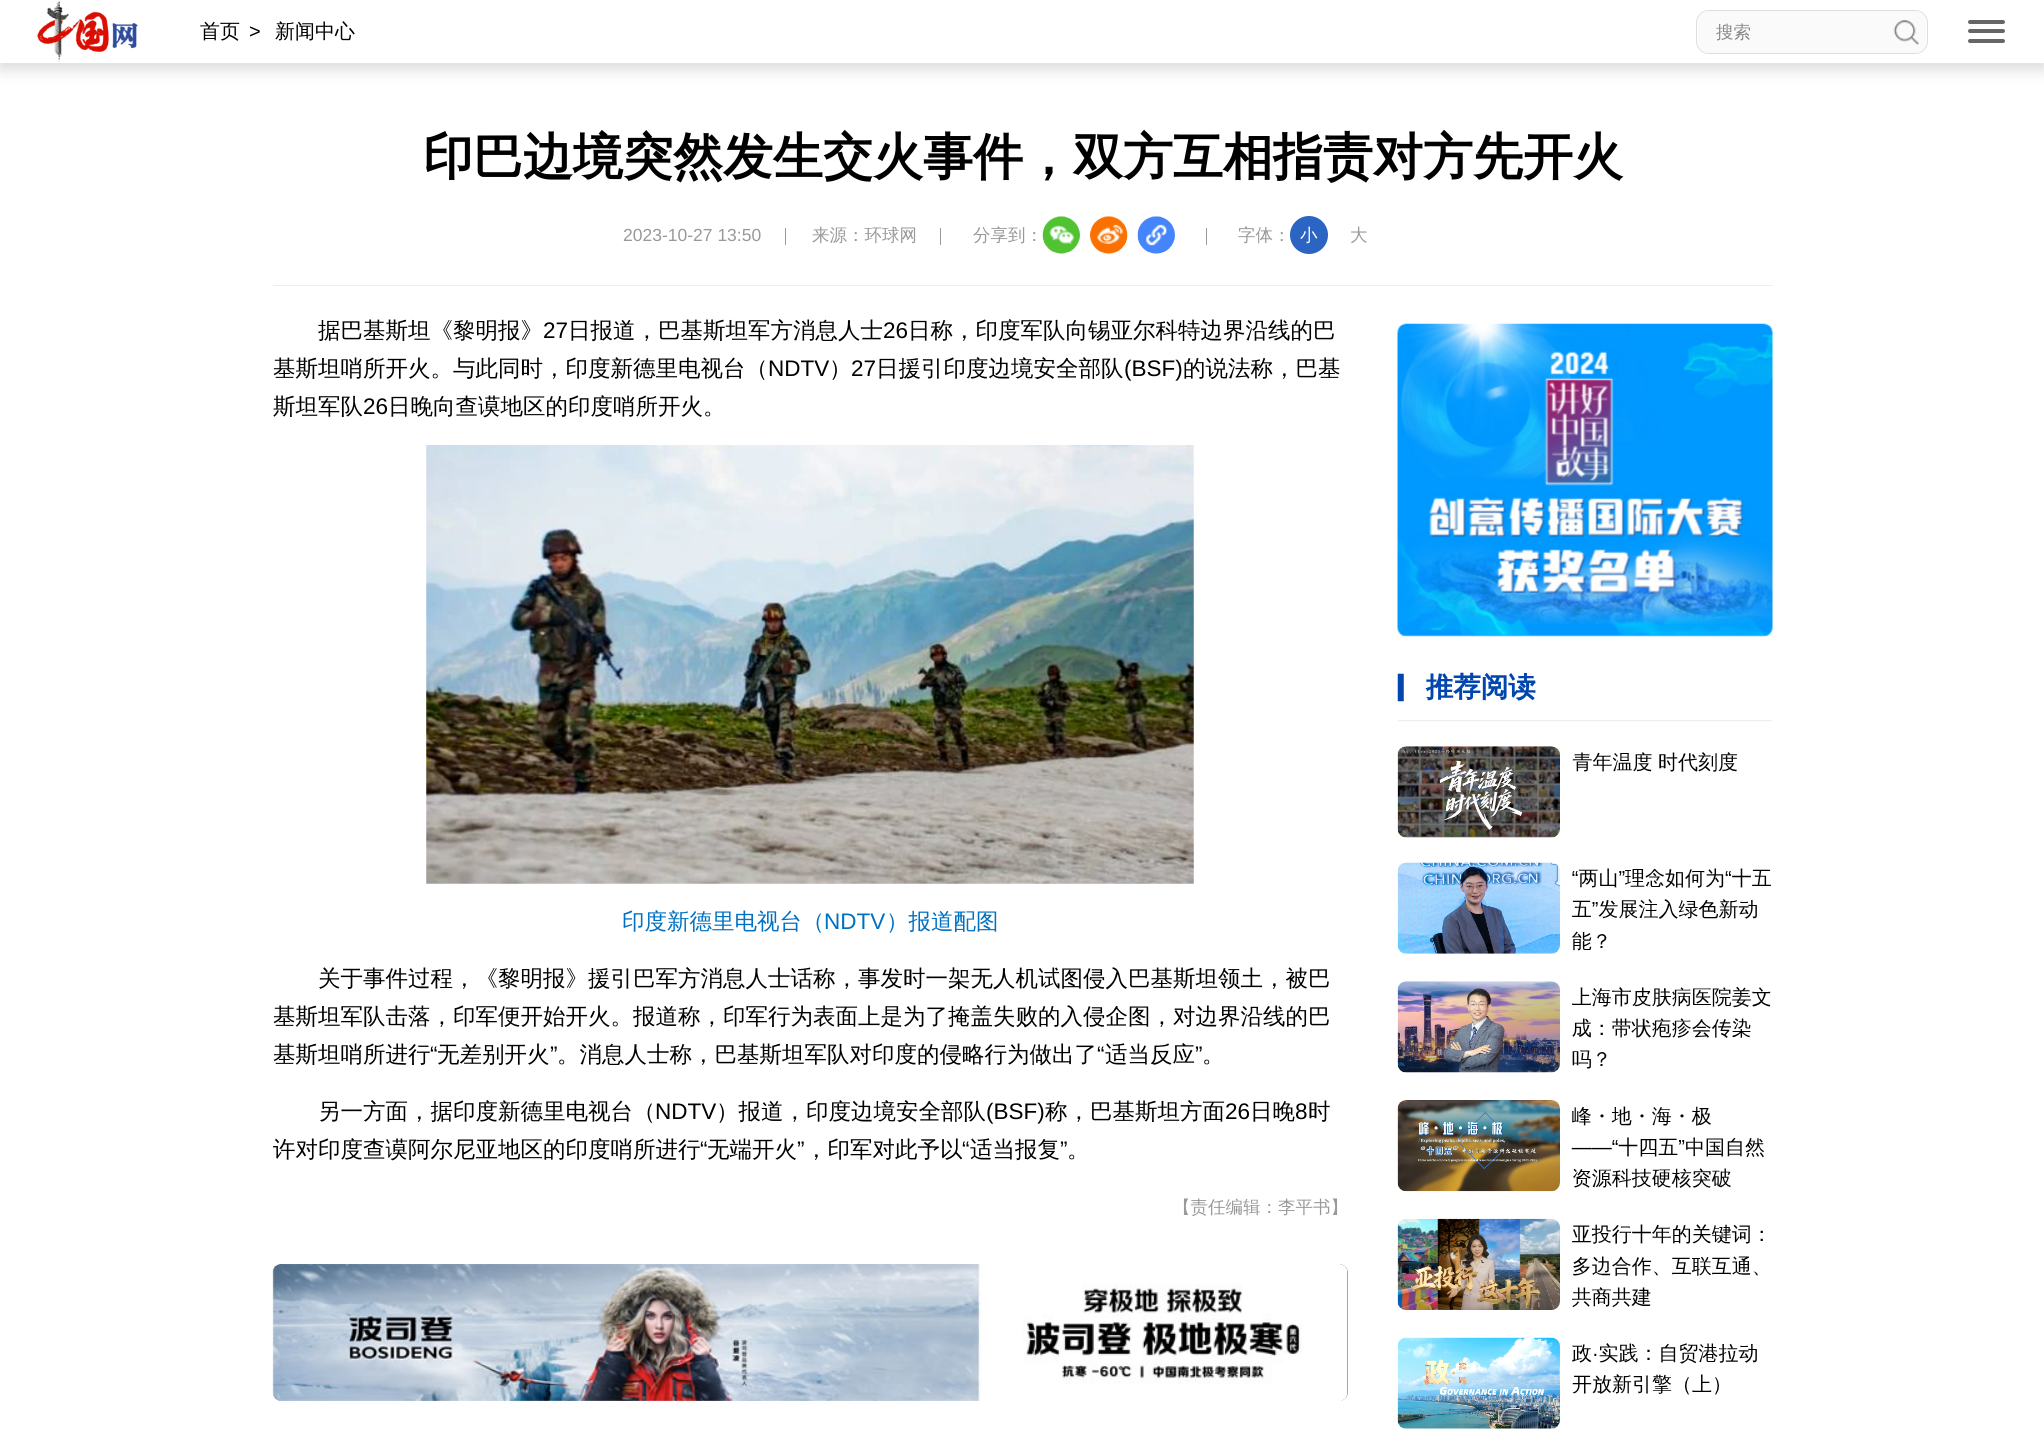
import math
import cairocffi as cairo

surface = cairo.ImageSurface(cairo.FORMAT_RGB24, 2044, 1432)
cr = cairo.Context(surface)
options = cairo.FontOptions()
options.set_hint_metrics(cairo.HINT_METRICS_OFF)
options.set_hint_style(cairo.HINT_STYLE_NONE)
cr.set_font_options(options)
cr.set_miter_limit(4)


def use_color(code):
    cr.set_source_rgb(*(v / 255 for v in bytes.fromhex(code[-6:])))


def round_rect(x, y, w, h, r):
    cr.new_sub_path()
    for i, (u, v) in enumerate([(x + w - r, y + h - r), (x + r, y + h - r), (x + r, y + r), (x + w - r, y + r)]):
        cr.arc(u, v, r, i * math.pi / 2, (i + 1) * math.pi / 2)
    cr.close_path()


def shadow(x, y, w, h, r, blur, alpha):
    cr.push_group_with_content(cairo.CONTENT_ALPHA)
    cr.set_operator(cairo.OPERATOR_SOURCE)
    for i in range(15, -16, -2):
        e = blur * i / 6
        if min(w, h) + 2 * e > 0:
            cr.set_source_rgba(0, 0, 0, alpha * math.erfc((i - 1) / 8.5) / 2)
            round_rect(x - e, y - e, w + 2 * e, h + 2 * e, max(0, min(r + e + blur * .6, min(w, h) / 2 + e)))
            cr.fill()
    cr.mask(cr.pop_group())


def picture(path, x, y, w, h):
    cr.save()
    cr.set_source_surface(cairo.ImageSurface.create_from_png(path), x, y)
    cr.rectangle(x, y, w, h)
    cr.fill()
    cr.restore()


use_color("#ffffff")
cr.paint()
use_color("#000000")
shadow(0, 6, 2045, 63, 0, 8, 0.15)
use_color("#ffffff")
cr.rectangle(0, 0, 2044, 63)
cr.fill()
picture("img1.png", 37, 1, 101, 61)
cr.select_font_face("WenQuanYi Zen Hei Medium")
cr.set_font_size(20)
use_color("#000000")
cr.move_to(200, 38)
cr.show_text("首页")
cr.select_font_face("Liberation Sans")
cr.move_to(249, 38)
cr.show_text(">")
cr.select_font_face("WenQuanYi Zen Hei Medium")
cr.move_to(275, 38)
cr.show_text("新闻中心")
round_rect(1696.5, 10.5, 231, 43, 12.5)
use_color("#dddddd")
cr.set_line_width(1)
cr.stroke()
use_color("#fafafa")
cr.new_path()
cr.move_to(1709, 11)
cr.line_to(1885, 11)
cr.line_to(1885, 53)
cr.line_to(1709, 53)
cr.curve_to(1703, 53, 1698, 48, 1698, 42)
cr.line_to(1698, 22)
cr.curve_to(1698, 16, 1703, 11, 1709, 11)
cr.close_path()
cr.fill()
cr.set_font_size(17.5)
use_color("#888888")
cr.move_to(1716, 38)
cr.show_text("搜索")
use_color("#fafafa")
cr.new_path()
cr.move_to(1885, 11)
cr.line_to(1915, 11)
cr.curve_to(1921, 11, 1926, 16, 1926, 22)
cr.line_to(1926, 42)
cr.curve_to(1926, 48, 1921, 53, 1915, 53)
cr.line_to(1885, 53)
cr.close_path()
cr.fill()
picture("img2.png", 1893, 20, 26, 25)
use_color("#666666")
round_rect(1968, 20, 37, 4, 2)
cr.fill()
round_rect(1968, 29, 37, 4, 2)
cr.fill()
round_rect(1968, 39, 37, 4, 2)
cr.fill()
cr.select_font_face("WenQuanYi Zen Hei", cairo.FONT_SLANT_NORMAL, cairo.FONT_WEIGHT_BOLD)
cr.set_font_size(50)
use_color("#000000")
cr.move_to(423, 174)
cr.show_text("印巴边境突然发生交火事件，双方互相指责对方先开火")
use_color("#eeeeee")
cr.rectangle(273, 285, 1500, 1)
cr.fill()
cr.select_font_face("Liberation Sans")
cr.set_font_size(17.5)
use_color("#999999")
cr.move_to(623, 241)
cr.show_text("2023-10-27 13:50")
cr.rectangle(785, 228, 1, 17)
cr.fill()
cr.select_font_face("WenQuanYi Zen Hei Medium")
cr.move_to(812, 241)
cr.show_text("来源：环球网")
cr.rectangle(940, 228, 1, 17)
cr.fill()
cr.move_to(973, 241)
cr.show_text("分享到：")
picture("img3.png", 1042, 216, 38, 38)
picture("img4.png", 1090, 216, 38, 38)
picture("img5.png", 1137, 216, 38, 38)
cr.rectangle(1206, 228, 1, 17)
cr.fill()
cr.move_to(1238, 241)
cr.show_text("字体：")
use_color("#2c64c3")
cr.new_path()
cr.arc(1309, 235, 19, 0, 2 * math.pi)
cr.fill()
use_color("#ffffff")
cr.move_to(1300, 241)
cr.show_text("小")
use_color("#999999")
cr.move_to(1350, 241)
cr.show_text("大")
cr.set_font_size(22.5)
use_color("#000000")
cr.move_to(318, 338)
cr.show_text("据巴基斯坦《黎明报》")
cr.select_font_face("Liberation Sans")
cr.move_to(543, 338)
cr.show_text("27")
cr.select_font_face("WenQuanYi Zen Hei Medium")
cr.move_to(568, 338)
cr.show_text("日报道，巴基斯坦军方消息人士")
cr.select_font_face("Liberation Sans")
cr.move_to(883, 338)
cr.show_text("26")
cr.select_font_face("WenQuanYi Zen Hei Medium")
cr.move_to(908, 338)
cr.show_text("日称，印度军队向锡亚尔科特边界沿线的巴")
cr.move_to(273, 376)
cr.show_text("基斯坦哨所开火。与此同时，印度新德里电视台（")
cr.select_font_face("Liberation Sans")
cr.move_to(768, 376)
cr.show_text("NDTV")
cr.select_font_face("WenQuanYi Zen Hei Medium")
cr.move_to(829, 376)
cr.show_text("）")
cr.select_font_face("Liberation Sans")
cr.move_to(851, 376)
cr.show_text("27")
cr.select_font_face("WenQuanYi Zen Hei Medium")
cr.move_to(876, 376)
cr.show_text("日援引印度边境安全部队")
cr.select_font_face("Liberation Sans")
cr.move_to(1124, 376)
cr.show_text("(BSF)")
cr.select_font_face("WenQuanYi Zen Hei Medium")
cr.move_to(1183, 376)
cr.show_text("的说法称，巴基")
cr.move_to(273, 414)
cr.show_text("斯坦军队")
cr.select_font_face("Liberation Sans")
cr.move_to(363, 414)
cr.show_text("26")
cr.select_font_face("WenQuanYi Zen Hei Medium")
cr.move_to(388, 414)
cr.show_text("日晚向查谟地区的印度哨所开火。")
picture("img6.png", 426, 445, 768, 439)
use_color("#0070c0")
cr.move_to(622, 929)
cr.show_text("印度新德里电视台（")
cr.select_font_face("Liberation Sans")
cr.move_to(824, 929)
cr.show_text("NDTV")
cr.select_font_face("WenQuanYi Zen Hei Medium")
cr.move_to(886, 929)
cr.show_text("）报道配图")
use_color("#000000")
cr.move_to(318, 986)
cr.show_text("关于事件过程，《黎明报》援引巴军方消息人士话称，事发时一架无人机试图侵入巴基斯坦领土，被巴")
cr.move_to(273, 1024)
cr.show_text("基斯坦军队击落，印军便开始开火。报道称，印军行为表面上是为了掩盖失败的入侵企图，对边界沿线的巴")
cr.move_to(273, 1062)
cr.show_text("基斯坦哨所进行")
cr.select_font_face("Liberation Sans")
cr.move_to(430, 1062)
cr.show_text("“")
cr.select_font_face("WenQuanYi Zen Hei Medium")
cr.move_to(437, 1062)
cr.show_text("无差别开火")
cr.select_font_face("Liberation Sans")
cr.move_to(550, 1062)
cr.show_text("”")
cr.select_font_face("WenQuanYi Zen Hei Medium")
cr.move_to(557, 1062)
cr.show_text("。消息人士称，巴基斯坦军队对印度的侵略行为做出了")
cr.select_font_face("Liberation Sans")
cr.move_to(1097, 1062)
cr.show_text("“")
cr.select_font_face("WenQuanYi Zen Hei Medium")
cr.move_to(1105, 1062)
cr.show_text("适当反应")
cr.select_font_face("Liberation Sans")
cr.move_to(1195, 1062)
cr.show_text("”")
cr.select_font_face("WenQuanYi Zen Hei Medium")
cr.move_to(1202, 1062)
cr.show_text("。")
cr.move_to(318, 1119)
cr.show_text("另一方面，据印度新德里电视台（")
cr.select_font_face("Liberation Sans")
cr.move_to(655, 1119)
cr.show_text("NDTV")
cr.select_font_face("WenQuanYi Zen Hei Medium")
cr.move_to(716, 1119)
cr.show_text("）报道，印度边境安全部队")
cr.select_font_face("Liberation Sans")
cr.move_to(986, 1119)
cr.show_text("(BSF)")
cr.select_font_face("WenQuanYi Zen Hei Medium")
cr.move_to(1045, 1119)
cr.show_text("称，巴基斯坦方面")
cr.select_font_face("Liberation Sans")
cr.move_to(1225, 1119)
cr.show_text("26")
cr.select_font_face("WenQuanYi Zen Hei Medium")
cr.move_to(1250, 1119)
cr.show_text("日晚")
cr.select_font_face("Liberation Sans")
cr.move_to(1295, 1119)
cr.show_text("8")
cr.select_font_face("WenQuanYi Zen Hei Medium")
cr.move_to(1308, 1119)
cr.show_text("时")
cr.move_to(273, 1157)
cr.show_text("许对印度查谟阿尔尼亚地区的印度哨所进行")
cr.select_font_face("Liberation Sans")
cr.move_to(700, 1157)
cr.show_text("“")
cr.select_font_face("WenQuanYi Zen Hei Medium")
cr.move_to(707, 1157)
cr.show_text("无端开火")
cr.select_font_face("Liberation Sans")
cr.move_to(797, 1157)
cr.show_text("”")
cr.select_font_face("WenQuanYi Zen Hei Medium")
cr.move_to(805, 1157)
cr.show_text("，印军对此予以")
cr.select_font_face("Liberation Sans")
cr.move_to(962, 1157)
cr.show_text("“")
cr.select_font_face("WenQuanYi Zen Hei Medium")
cr.move_to(970, 1157)
cr.show_text("适当报复")
cr.select_font_face("Liberation Sans")
cr.move_to(1060, 1157)
cr.show_text("”")
cr.select_font_face("WenQuanYi Zen Hei Medium")
cr.move_to(1067, 1157)
cr.show_text("。")
cr.set_font_size(17.5)
use_color("#999999")
cr.move_to(1173, 1213)
cr.show_text("【责任编辑：李平书】")
round_rect(273, 1264, 1075, 137, 9)
cr.fill()
picture("img7.png", 272, 1264, 1076, 137)
picture("img8.png", 1397, 323, 376, 1106)
surface.write_to_png("result.png")
